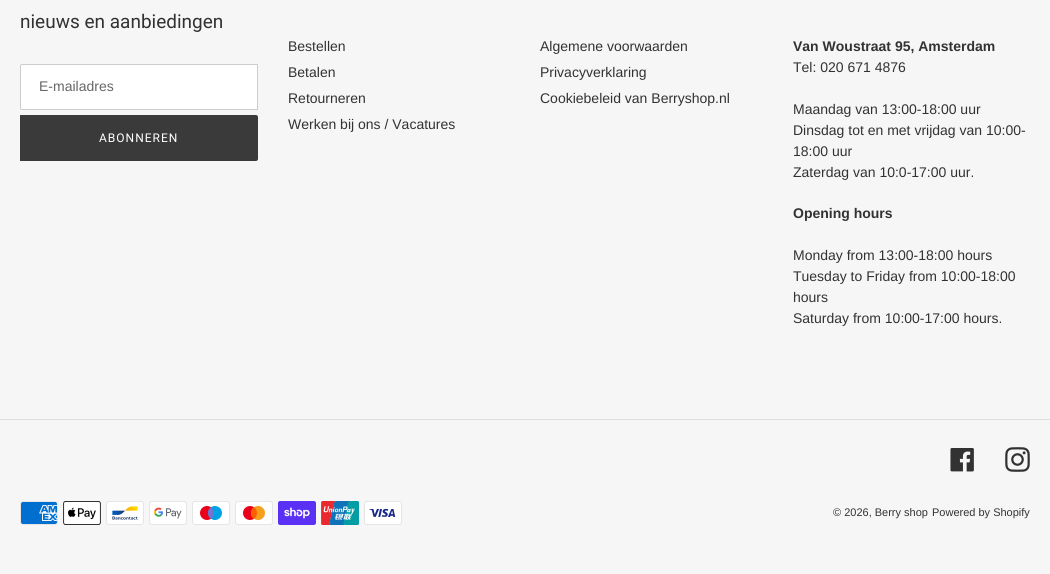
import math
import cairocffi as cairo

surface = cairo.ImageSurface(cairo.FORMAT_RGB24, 1050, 574)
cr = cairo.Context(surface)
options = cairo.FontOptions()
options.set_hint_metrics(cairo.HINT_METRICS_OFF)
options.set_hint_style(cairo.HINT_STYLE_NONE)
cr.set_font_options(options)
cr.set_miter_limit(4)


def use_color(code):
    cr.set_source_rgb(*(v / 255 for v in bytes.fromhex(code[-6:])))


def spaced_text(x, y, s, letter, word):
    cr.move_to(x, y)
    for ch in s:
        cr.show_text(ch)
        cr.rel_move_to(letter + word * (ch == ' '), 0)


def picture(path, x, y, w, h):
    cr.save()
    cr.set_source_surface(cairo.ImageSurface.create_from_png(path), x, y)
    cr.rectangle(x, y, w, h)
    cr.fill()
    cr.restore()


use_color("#f6f6f6")
cr.paint()
cr.select_font_face("Roboto")
cr.set_font_size(19)
use_color("#333232")
cr.move_to(20, 28)
cr.show_text("nieuws en aanbiedingen")
use_color("#ffffff")
cr.new_path()
cr.move_to(22, 64.5)
cr.line_to(257.5, 64.5)
cr.line_to(257.5, 109.5)
cr.line_to(22, 109.5)
cr.curve_to(21, 109.5, 20.5, 109, 20.5, 108)
cr.line_to(20.5, 66)
cr.curve_to(20.5, 65, 21, 64.5, 22, 64.5)
cr.close_path()
cr.fill_preserve()
use_color("#cccccc")
cr.set_line_width(1)
cr.stroke()
cr.select_font_face("Liberation Sans")
cr.set_font_size(14)
use_color("#666666")
cr.move_to(39, 91)
cr.show_text("E-mailadres")
use_color("#3a3a3a")
cr.new_path()
cr.move_to(20, 115)
cr.line_to(256, 115)
cr.curve_to(257, 115, 258, 116, 258, 117)
cr.line_to(258, 159)
cr.curve_to(258, 160, 257, 161, 256, 161)
cr.line_to(20, 161)
cr.close_path()
cr.fill()
cr.select_font_face("Roboto")
cr.set_font_size(12)
use_color("#ffffff")
spaced_text(99, 142, "ABONNEREN", 1, 0)
cr.select_font_face("Liberation Sans")
cr.set_font_size(14)
use_color("#333232")
cr.move_to(288, 51)
cr.show_text("Bestellen")
cr.move_to(288, 77)
cr.show_text("Betalen")
cr.move_to(288, 103)
cr.show_text("Retourneren")
cr.move_to(288, 129)
cr.show_text("Werken bij ons / Vacatures")
cr.move_to(540, 51)
cr.show_text("Algemene voorwaarden")
cr.move_to(540, 77)
cr.show_text("Privacyverklaring")
cr.move_to(540, 103)
cr.show_text("Cookiebeleid van Berryshop.nl")
cr.select_font_face("Liberation Sans", cairo.FONT_SLANT_NORMAL, cairo.FONT_WEIGHT_BOLD)
cr.move_to(793, 51)
cr.show_text("Van Woustraat 95, Amsterdam")
cr.select_font_face("Liberation Sans")
cr.move_to(793, 72)
cr.show_text("Tel: 020 671 4876")
cr.move_to(793, 114)
cr.show_text("Maandag van 13:00-18:00 uur")
cr.move_to(793, 135)
cr.show_text("Dinsdag tot en met vrijdag van 10:00-")
cr.move_to(793, 156)
cr.show_text("18:00 uur")
cr.move_to(793, 177)
cr.show_text("Zaterdag van 10:0-17:00 uur.")
cr.select_font_face("Liberation Sans", cairo.FONT_SLANT_NORMAL, cairo.FONT_WEIGHT_BOLD)
cr.move_to(793, 218)
cr.show_text("Opening hours")
cr.select_font_face("Liberation Sans")
cr.move_to(793, 260)
cr.show_text("Monday from 13:00-18:00 hours")
cr.move_to(793, 281)
cr.show_text("Tuesday to Friday from 10:00-18:00")
cr.move_to(793, 302)
cr.show_text("hours")
cr.move_to(793, 323)
cr.show_text("Saturday from 10:00-17:00 hours.")
use_color("#dddddd")
cr.rectangle(0, 419, 1050, 1)
cr.fill()
picture("img1.png", 950, 448, 24, 24)
picture("img2.png", 1005, 447, 25, 25)
picture("img3.png", 20, 501, 38, 24)
picture("img4.png", 63, 501, 38, 24)
picture("img5.png", 106, 501, 38, 24)
picture("img6.png", 149, 501, 38, 24)
picture("img7.png", 192, 501, 38, 24)
picture("img8.png", 235, 501, 38, 24)
picture("img9.png", 278, 501, 38, 24)
picture("img10.png", 321, 501, 38, 24)
picture("img11.png", 364, 501, 38, 24)
cr.set_font_size(11)
use_color("#333232")
cr.move_to(833, 516)
cr.show_text("© 2026, Berry shop")
cr.move_to(932, 516)
cr.show_text("Powered by Shopify")
surface.write_to_png("result.png")
